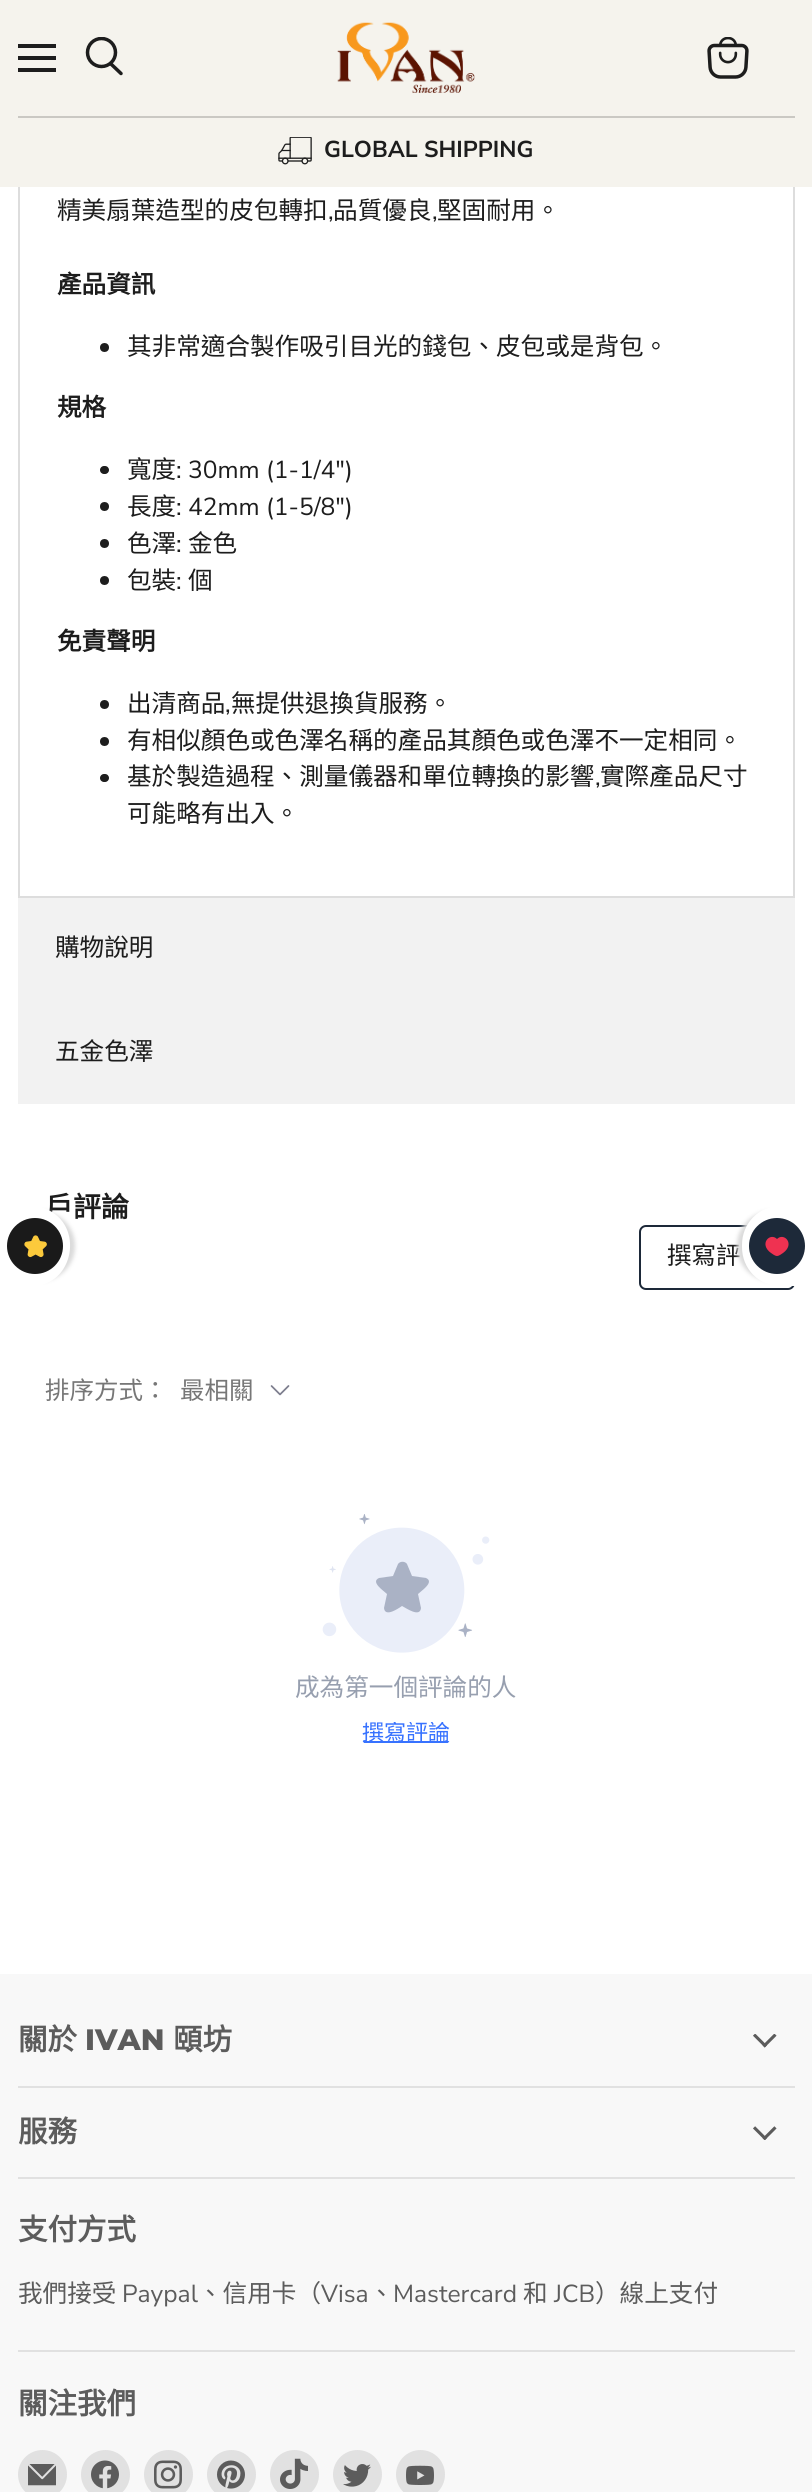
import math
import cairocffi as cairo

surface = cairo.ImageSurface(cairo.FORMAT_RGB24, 812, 2492)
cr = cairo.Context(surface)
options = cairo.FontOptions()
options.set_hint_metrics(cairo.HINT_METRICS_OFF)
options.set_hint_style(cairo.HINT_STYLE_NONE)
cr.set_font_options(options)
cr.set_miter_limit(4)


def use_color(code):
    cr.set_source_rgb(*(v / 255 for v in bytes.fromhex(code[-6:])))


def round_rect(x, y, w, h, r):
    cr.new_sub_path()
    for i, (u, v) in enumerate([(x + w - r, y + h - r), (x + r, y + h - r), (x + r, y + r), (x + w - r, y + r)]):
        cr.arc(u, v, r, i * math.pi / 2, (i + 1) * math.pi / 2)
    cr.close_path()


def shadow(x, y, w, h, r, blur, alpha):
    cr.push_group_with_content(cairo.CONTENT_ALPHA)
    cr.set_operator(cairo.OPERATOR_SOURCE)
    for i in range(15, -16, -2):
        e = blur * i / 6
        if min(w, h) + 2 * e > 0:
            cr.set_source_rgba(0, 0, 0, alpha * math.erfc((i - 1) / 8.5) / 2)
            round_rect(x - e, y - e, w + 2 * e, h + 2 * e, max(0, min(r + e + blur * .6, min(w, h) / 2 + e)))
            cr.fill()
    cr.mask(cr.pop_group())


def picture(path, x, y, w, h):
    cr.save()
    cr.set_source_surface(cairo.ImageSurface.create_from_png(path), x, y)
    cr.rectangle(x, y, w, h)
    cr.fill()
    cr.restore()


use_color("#ffffff")
cr.paint()
use_color("#f5f3ed")
cr.rectangle(0, 0, 812, 187)
cr.fill()
use_color("#1d1d1d")
cr.rectangle(18, 44, 38, 4)
cr.fill()
cr.rectangle(18, 56, 38, 4)
cr.fill()
cr.rectangle(18, 68, 38, 4)
cr.fill()
cr.new_path()
cr.move_to(121, 73.5)
cr.line_to(111, 64)
cr.set_line_width(3.5)
cr.set_line_cap(cairo.LINE_CAP_ROUND)
cr.stroke()
cr.save()
cr.rectangle(84, 37, 40, 42)
cr.clip()
cr.arc(101.5, 52.5, 14, 0, 2 * math.pi)
cr.set_line_cap(cairo.LINE_CAP_BUTT)
cr.stroke()
cr.restore()
picture("img1.png", 707, 37, 42, 42)
picture("img2.png", 337, 22, 138, 71)
use_color("#cac8c3")
cr.rectangle(18, 116, 777, 2)
cr.fill()
picture("img3.png", 278, 137, 34, 28)
cr.select_font_face("Nunito Sans", cairo.FONT_SLANT_NORMAL, cairo.FONT_WEIGHT_BOLD)
cr.set_font_size(23)
use_color("#1d1d1d")
cr.move_to(324, 157)
cr.show_text("GLOBAL SHIPPING")
use_color("#dddddd")
cr.rectangle(793, 187, 2, 711)
cr.fill()
cr.rectangle(18, 896, 777, 2)
cr.fill()
cr.rectangle(18, 187, 2, 711)
cr.fill()
cr.select_font_face("Noto Sans CJK TC")
cr.set_font_size(24.6)
use_color("#1d1d1d")
cr.move_to(57, 219)
cr.show_text("精美扇葉造型的皮包轉扣 品質優良 堅固耐用。")
cr.select_font_face("Nunito Sans")
cr.move_to(328, 219)
cr.show_text(",")
cr.move_to(432, 219)
cr.show_text(",")
cr.select_font_face("Noto Sans CJK TC", cairo.FONT_SLANT_NORMAL, cairo.FONT_WEIGHT_BOLD)
cr.move_to(57, 293)
cr.show_text("產品資訊")
cr.new_path()
cr.arc(104.5, 347.5, 4.5, 0, 2 * math.pi)
cr.fill()
cr.select_font_face("Noto Sans CJK TC")
cr.move_to(127, 355)
cr.show_text("其非常適合製作吸引目光的錢包、皮包或是背包。")
cr.select_font_face("Noto Sans CJK TC", cairo.FONT_SLANT_NORMAL, cairo.FONT_WEIGHT_BOLD)
cr.move_to(57, 416)
cr.show_text("規格")
round_rect(100, 466, 9, 8, 4)
cr.fill()
cr.select_font_face("Noto Sans CJK TC")
cr.move_to(127, 478)
cr.show_text("寬度")
cr.select_font_face("Nunito Sans")
cr.move_to(176, 478)
cr.show_text(": 30mm (1-1/4\")")
cr.new_path()
cr.arc(104.5, 506.5, 4.5, 0, 2 * math.pi)
cr.fill()
cr.select_font_face("Noto Sans CJK TC")
cr.move_to(127, 515)
cr.show_text("長度")
cr.select_font_face("Nunito Sans")
cr.move_to(176, 515)
cr.show_text(": 42mm (1-5/8\")")
cr.new_path()
cr.arc(104.5, 543.5, 4.5, 0, 2 * math.pi)
cr.fill()
cr.select_font_face("Noto Sans CJK TC")
cr.move_to(127, 552)
cr.show_text("色澤")
cr.select_font_face("Nunito Sans")
cr.move_to(176, 552)
cr.show_text(":")
cr.select_font_face("Noto Sans CJK TC")
cr.move_to(188, 552)
cr.show_text("金色")
cr.new_path()
cr.arc(104.5, 580.5, 4.5, 0, 2 * math.pi)
cr.fill()
cr.move_to(127, 589)
cr.show_text("包裝")
cr.select_font_face("Nunito Sans")
cr.move_to(176, 589)
cr.show_text(":")
cr.select_font_face("Noto Sans CJK TC")
cr.move_to(188, 589)
cr.show_text("個")
cr.select_font_face("Noto Sans CJK TC", cairo.FONT_SLANT_NORMAL, cairo.FONT_WEIGHT_BOLD)
cr.move_to(57, 650)
cr.show_text("免責聲明")
cr.new_path()
cr.arc(104.5, 704.5, 4.5, 0, 2 * math.pi)
cr.fill()
cr.select_font_face("Noto Sans CJK TC")
cr.move_to(127, 712)
cr.show_text("出清商品 無提供退換貨服務。")
cr.select_font_face("Nunito Sans")
cr.move_to(225, 712)
cr.show_text(",")
cr.new_path()
cr.arc(104.5, 741.5, 4.5, 0, 2 * math.pi)
cr.fill()
cr.select_font_face("Noto Sans CJK TC")
cr.move_to(127, 749)
cr.show_text("有相似顏色或色澤名稱的產品其顏色或色澤不一定相同。")
round_rect(100, 774, 9, 8, 4)
cr.fill()
cr.move_to(127, 785)
cr.show_text("基於製造過程、測量儀器和單位轉換的影響 實際產品尺寸")
cr.select_font_face("Nunito Sans")
cr.move_to(595, 785)
cr.show_text(",")
cr.select_font_face("Noto Sans CJK TC")
cr.move_to(127, 822)
cr.show_text("可能略有出入。")
use_color("#f2f2f2")
cr.rectangle(18, 898, 777, 206)
cr.fill()
use_color("#1d1d1d")
cr.move_to(55, 956)
cr.show_text("購物說明")
cr.move_to(55, 1060)
cr.show_text("五金色澤")
cr.select_font_face("Noto Sans CJK TC", cairo.FONT_SLANT_NORMAL, cairo.FONT_WEIGHT_BOLD)
cr.set_font_size(28)
cr.move_to(45, 1217)
cr.show_text("戶評論")
round_rect(640, 1226, 154, 63, 6)
use_color("#1d2939")
cr.set_line_width(2)
cr.set_line_cap(cairo.LINE_CAP_BUTT)
cr.stroke()
cr.select_font_face("Noto Sans CJK TC")
cr.set_font_size(24.5)
use_color("#1d1d1d")
cr.move_to(667, 1264)
cr.show_text("撰寫評")
use_color("#777777")
cr.move_to(45, 1399)
cr.show_text("排序方式：")
cr.move_to(180, 1399)
cr.show_text("最相關")
picture("img4.png", 270, 1385, 20, 11)
picture("img5.png", 322, 1514, 168, 139)
use_color("#aab2c5")
cr.new_path()
cr.move_to(407, 1564)
cr.curve_to(405, 1561, 400, 1561, 398, 1564)
cr.line_to(393, 1576)
cr.line_to(379, 1578)
cr.curve_to(370, 1582, 384, 1591, 387, 1594)
cr.line_to(384, 1608)
cr.curve_to(385, 1618, 399, 1608, 402, 1606)
cr.curve_to(406, 1608, 420, 1618, 421, 1608)
cr.line_to(418, 1594)
cr.curve_to(421, 1591, 435, 1582, 426, 1578)
cr.line_to(412, 1576)
cr.close_path()
cr.fill()
cr.set_font_size(24.6)
use_color("#979faf")
cr.move_to(295, 1696)
cr.show_text("成為第一個評論的人")
cr.save()
round_rect(362, 1722, 88, 23, 7)
cr.clip()
use_color("#3772ff")
cr.rectangle(362, 1741, 88, 2)
cr.fill()
cr.set_font_size(22)
cr.move_to(362, 1740)
cr.show_text("撰寫評論")
cr.restore()
use_color("#dadada")
shadow(-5, 1211, 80, 70, 39, 2, 1)
use_color("#ffffff")
cr.new_path()
cr.move_to(0, 1286)
cr.line_to(0, 1206)
cr.curve_to(13, 1206, 35, 1204, 46, 1209)
cr.curve_to(85, 1225, 74, 1286, 32, 1286)
cr.close_path()
cr.fill()
use_color("#1a1a1a")
cr.arc(35, 1246, 28, 0, 2 * math.pi)
cr.fill()
picture("img6.png", 24, 1235, 23, 23)
use_color("#dadada")
shadow(737, 1211, 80, 70, 39, 2, 1)
use_color("#ffffff")
cr.new_path()
cr.move_to(742, 1247)
cr.line_to(742, 1245)
cr.curve_to(742, 1223, 759, 1206, 780, 1206)
cr.line_to(812, 1206)
cr.line_to(812, 1286)
cr.line_to(780, 1286)
cr.curve_to(759, 1286, 742, 1269, 742, 1247)
cr.close_path()
cr.fill()
use_color("#1d2939")
cr.arc(777, 1246, 28, 0, 2 * math.pi)
cr.fill()
use_color("#ef3251")
cr.new_path()
cr.move_to(777, 1239)
cr.curve_to(770, 1232, 758.5, 1244, 771, 1253)
cr.curve_to(772.5, 1254, 775, 1256, 777, 1256)
cr.curve_to(779, 1256, 781.5, 1254, 783, 1253)
cr.curve_to(795.5, 1244, 784, 1232, 777, 1239)
cr.close_path()
cr.fill()
use_color("#f8f8f8")
cr.rectangle(0, 1974, 812, 518)
cr.fill()
use_color("#e1e1e1")
cr.rectangle(18, 2086, 777, 2)
cr.fill()
cr.select_font_face("Noto Sans CJK TC", cairo.FONT_SLANT_NORMAL, cairo.FONT_WEIGHT_BOLD)
cr.set_font_size(29.5)
use_color("#5c5c5c")
cr.move_to(18, 2050)
cr.show_text("關於")
cr.select_font_face("Montserrat ExtraBold")
cr.move_to(85, 2050)
cr.show_text("IVAN")
cr.select_font_face("Noto Sans CJK TC", cairo.FONT_SLANT_NORMAL, cairo.FONT_WEIGHT_BOLD)
cr.move_to(173, 2050)
cr.show_text("頤坊")
picture("img7.png", 753, 2034, 24, 14)
use_color("#e1e1e1")
cr.rectangle(18, 2177, 777, 2)
cr.fill()
use_color("#5c5c5c")
cr.move_to(18, 2142)
cr.show_text("服務")
picture("img8.png", 753, 2126, 24, 14)
use_color("#e1e1e1")
cr.rectangle(18, 2350, 777, 2)
cr.fill()
use_color("#5c5c5c")
cr.move_to(18, 2240)
cr.show_text("支付方式")
cr.select_font_face("Noto Sans CJK TC")
cr.set_font_size(24.6)
cr.move_to(18, 2302)
cr.show_text("我們接受")
cr.select_font_face("Nunito Sans")
cr.move_to(122, 2302)
cr.show_text("Paypal")
cr.select_font_face("Noto Sans CJK TC")
cr.move_to(198, 2302)
cr.show_text("、信用卡（")
cr.select_font_face("Nunito Sans")
cr.move_to(321, 2302)
cr.show_text("Visa")
cr.select_font_face("Noto Sans CJK TC")
cr.move_to(369, 2302)
cr.show_text("、")
cr.select_font_face("Nunito Sans")
cr.move_to(393, 2302)
cr.show_text("Mastercard")
cr.select_font_face("Noto Sans CJK TC")
cr.move_to(523, 2302)
cr.show_text("和")
cr.select_font_face("Nunito Sans")
cr.move_to(554, 2302)
cr.show_text("JCB")
cr.select_font_face("Noto Sans CJK TC")
cr.move_to(595, 2302)
cr.show_text("）線上支付")
cr.select_font_face("Noto Sans CJK TC", cairo.FONT_SLANT_NORMAL, cairo.FONT_WEIGHT_BOLD)
cr.set_font_size(29.5)
cr.move_to(18, 2414)
cr.show_text("關注我們")
use_color("#e1e1e1")
cr.new_path()
cr.arc(42.5, 2474.5, 24.5, 0, 2 * math.pi)
cr.fill()
picture("img9.png", 28, 2464, 28, 22)
cr.arc(105.5, 2474.5, 24.5, 0, 2 * math.pi)
cr.fill()
picture("img10.png", 91, 2460, 28, 29)
cr.arc(168.5, 2474.5, 24.5, 0, 2 * math.pi)
cr.fill()
picture("img11.png", 154, 2460, 28, 29)
cr.arc(231.5, 2474.5, 24.5, 0, 2 * math.pi)
cr.fill()
picture("img12.png", 217, 2460, 28, 29)
cr.arc(294.5, 2474.5, 24.5, 0, 2 * math.pi)
cr.fill()
picture("img13.png", 280, 2458, 28, 31)
cr.arc(357.5, 2474.5, 24.5, 0, 2 * math.pi)
cr.fill()
picture("img14.png", 343, 2464, 28, 23)
cr.arc(420.5, 2474.5, 24.5, 0, 2 * math.pi)
cr.fill()
picture("img15.png", 406, 2465, 28, 20)
surface.write_to_png("result.png")
